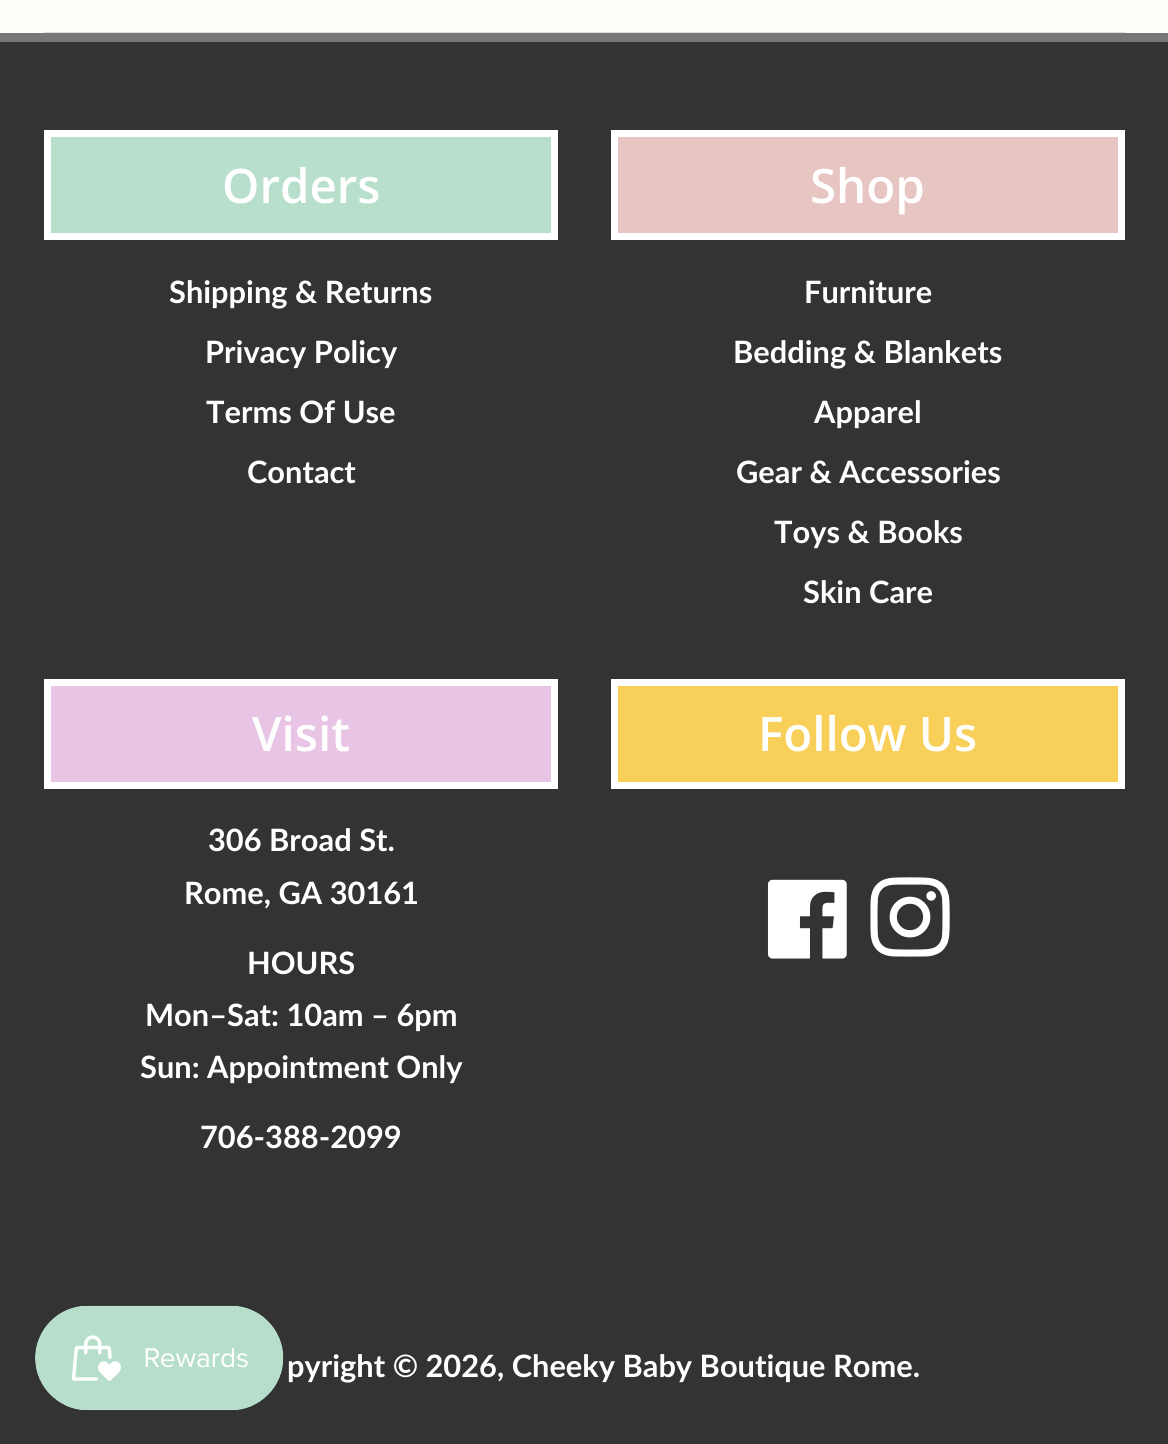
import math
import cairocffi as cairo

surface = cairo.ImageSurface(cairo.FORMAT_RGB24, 1168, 1444)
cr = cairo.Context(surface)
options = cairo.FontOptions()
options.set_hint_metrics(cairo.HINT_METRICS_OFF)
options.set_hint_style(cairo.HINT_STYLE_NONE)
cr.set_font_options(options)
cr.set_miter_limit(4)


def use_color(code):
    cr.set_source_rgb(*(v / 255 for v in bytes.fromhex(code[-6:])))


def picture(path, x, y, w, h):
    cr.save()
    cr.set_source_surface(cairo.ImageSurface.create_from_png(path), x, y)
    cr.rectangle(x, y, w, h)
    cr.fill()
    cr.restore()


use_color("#fffefb")
cr.paint()
use_color("#dddddd")
cr.rectangle(44, 32, 1081, 1)
cr.fill()
use_color("#333333")
cr.rectangle(0, 42, 1168, 1402)
cr.fill()
use_color("#777777")
cr.rectangle(0, 33, 1168, 9)
cr.fill()
use_color("#b7dfcc")
cr.rectangle(47.5, 133.5, 507, 103)
cr.fill_preserve()
use_color("#ffffff")
cr.set_line_width(7)
cr.stroke()
cr.select_font_face("Open Sans SemiBold")
cr.set_font_size(47.5)
cr.move_to(222, 203)
cr.show_text("Orders")
cr.select_font_face("Lato", cairo.FONT_SLANT_NORMAL, cairo.FONT_WEIGHT_BOLD)
cr.set_font_size(30.8)
cr.move_to(169, 303)
cr.show_text("Shipping & Returns")
cr.move_to(205, 363)
cr.show_text("Privacy Policy")
cr.move_to(206, 423)
cr.show_text("Terms Of Use")
cr.move_to(247, 483)
cr.show_text("Contact")
use_color("#e7c5c3")
cr.rectangle(614.5, 133.5, 507, 103)
cr.fill_preserve()
use_color("#ffffff")
cr.stroke()
cr.select_font_face("Open Sans SemiBold")
cr.set_font_size(47.5)
cr.move_to(810, 203)
cr.show_text("Shop")
cr.select_font_face("Lato", cairo.FONT_SLANT_NORMAL, cairo.FONT_WEIGHT_BOLD)
cr.set_font_size(30.8)
cr.move_to(804, 303)
cr.show_text("Furniture")
cr.move_to(733, 363)
cr.show_text("Bedding & Blankets")
cr.move_to(814, 423)
cr.show_text("Apparel")
cr.move_to(736, 483)
cr.show_text("Gear & Accessories")
cr.move_to(774, 543)
cr.show_text("Toys & Books")
cr.move_to(803, 603)
cr.show_text("Skin Care")
use_color("#e8c5e4")
cr.rectangle(47.5, 682.5, 507, 103)
cr.fill_preserve()
use_color("#ffffff")
cr.stroke()
cr.select_font_face("Open Sans SemiBold")
cr.set_font_size(47.5)
cr.move_to(252, 751)
cr.show_text("Visit")
cr.select_font_face("Lato", cairo.FONT_SLANT_NORMAL, cairo.FONT_WEIGHT_BOLD)
cr.set_font_size(30.8)
cr.move_to(208, 851)
cr.show_text("306 Broad St.")
cr.move_to(184, 904)
cr.show_text("Rome, GA 30161")
cr.move_to(247, 974)
cr.show_text("HOURS")
cr.move_to(145, 1026)
cr.show_text("Mon–Sat: 10am – 6pm")
cr.move_to(140, 1078)
cr.show_text("Sun: Appointment Only")
cr.move_to(200, 1148)
cr.show_text("706-388-2099")
use_color("#f8cf58")
cr.rectangle(614.5, 682.5, 507, 103)
cr.fill_preserve()
use_color("#ffffff")
cr.stroke()
cr.select_font_face("Open Sans SemiBold")
cr.set_font_size(47.5)
cr.move_to(758, 751)
cr.show_text("Follow Us")
picture("img1.png", 767, 879, 80, 80)
picture("img2.png", 870, 877, 80, 80)
cr.select_font_face("Lato", cairo.FONT_SLANT_NORMAL, cairo.FONT_WEIGHT_BOLD)
cr.set_font_size(30.8)
cr.move_to(287, 1377)
cr.show_text("pyright © 2026, Cheeky Baby Boutique Rome.")
picture("img3.png", 35, 1305, 249, 106)
surface.write_to_png("result.png")
